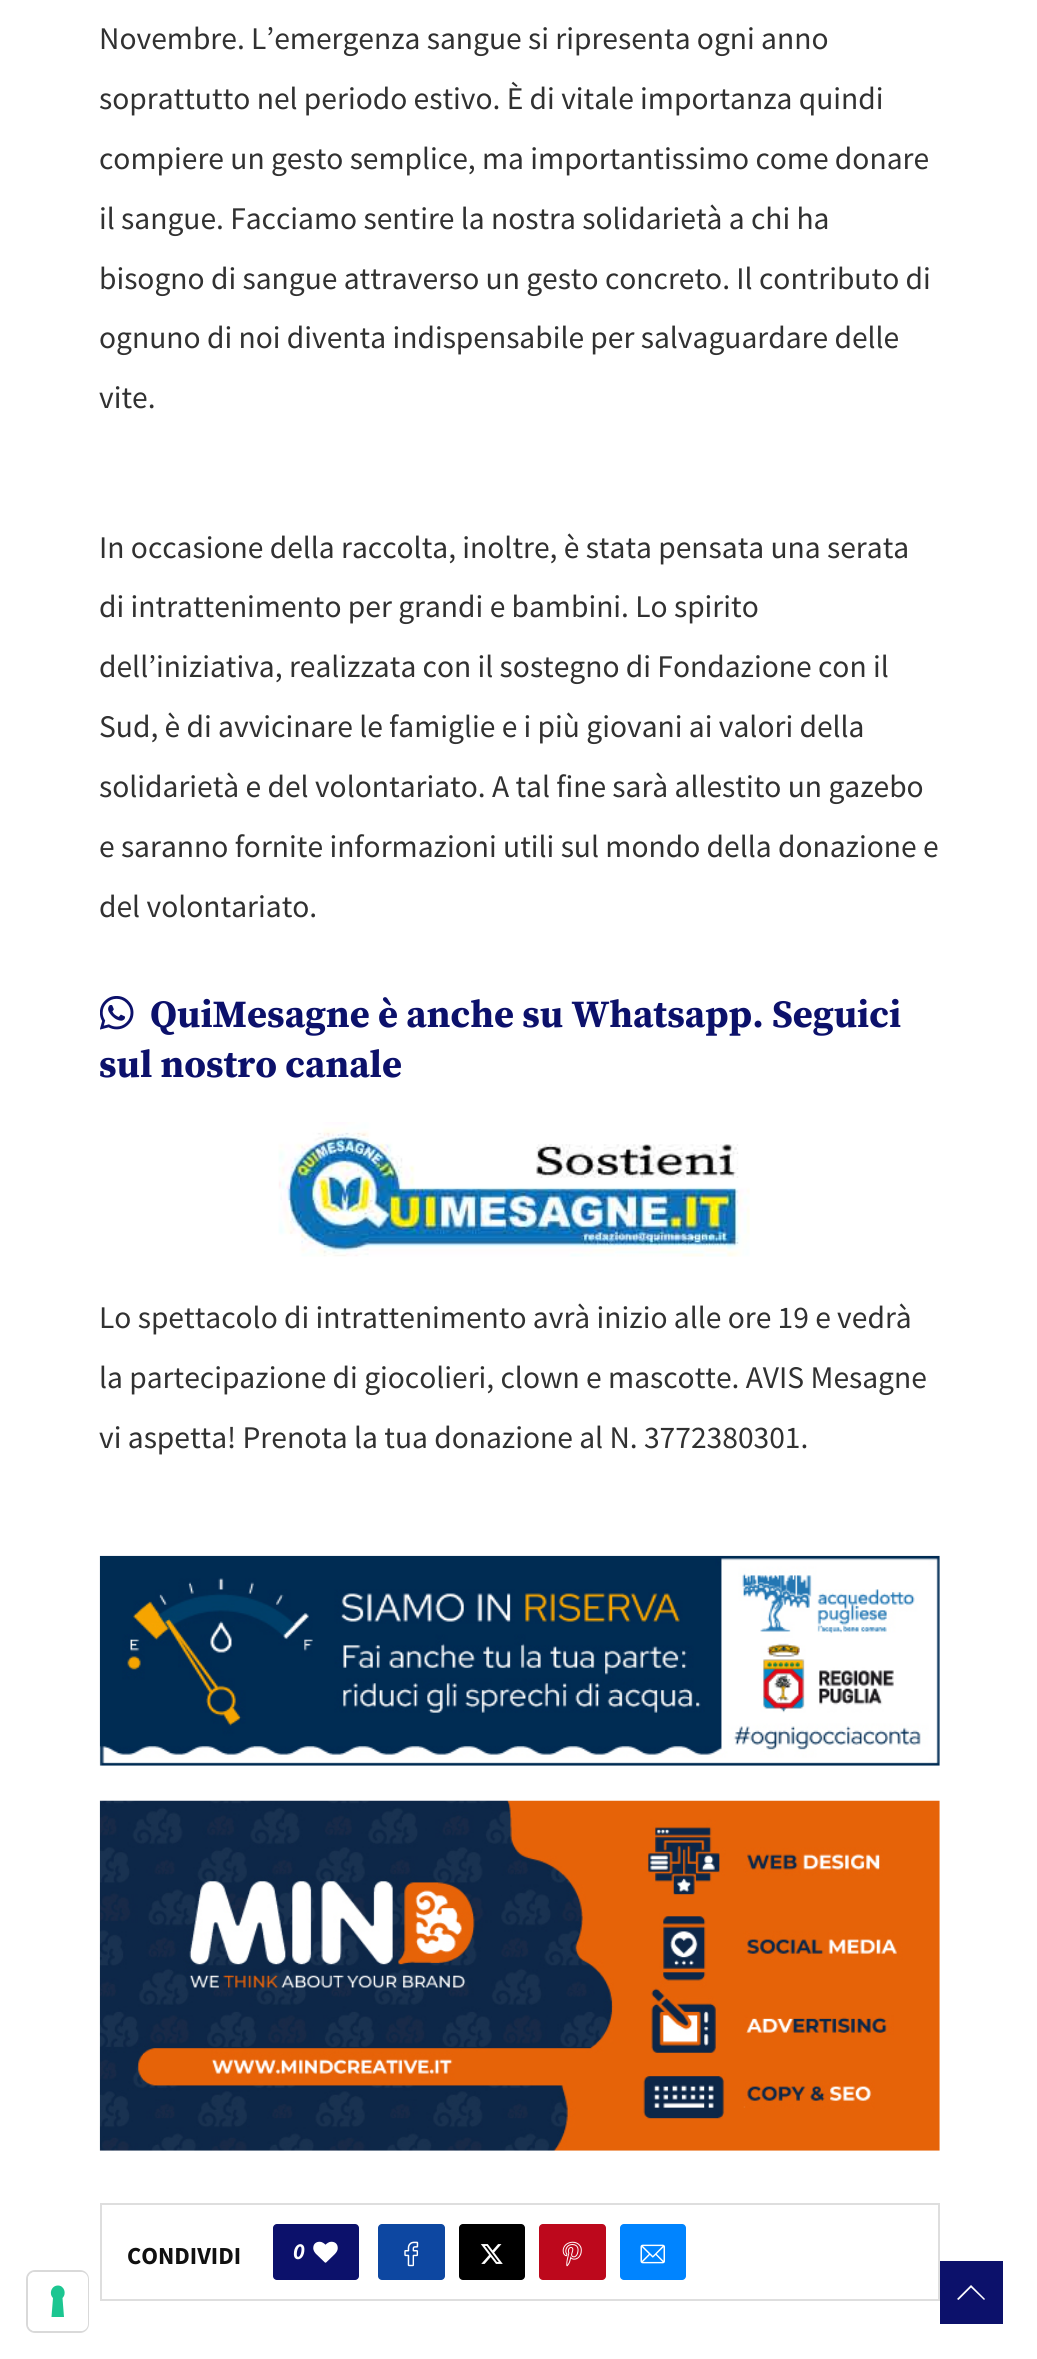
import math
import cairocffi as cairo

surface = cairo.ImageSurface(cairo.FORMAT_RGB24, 1037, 2359)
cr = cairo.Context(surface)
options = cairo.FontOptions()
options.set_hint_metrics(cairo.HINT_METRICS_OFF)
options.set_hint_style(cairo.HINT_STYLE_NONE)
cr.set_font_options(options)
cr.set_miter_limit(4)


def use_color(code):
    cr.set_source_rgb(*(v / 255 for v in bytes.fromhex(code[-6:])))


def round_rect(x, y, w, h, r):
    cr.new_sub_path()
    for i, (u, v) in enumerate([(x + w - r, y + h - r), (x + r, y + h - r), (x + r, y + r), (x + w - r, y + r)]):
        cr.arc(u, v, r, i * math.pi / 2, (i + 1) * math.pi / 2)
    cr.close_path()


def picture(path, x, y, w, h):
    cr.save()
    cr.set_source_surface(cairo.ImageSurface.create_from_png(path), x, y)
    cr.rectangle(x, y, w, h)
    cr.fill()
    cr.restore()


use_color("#ffffff")
cr.paint()
cr.select_font_face("Source Sans Pro")
cr.set_font_size(31.5)
use_color("#313131")
cr.move_to(99, 49)
cr.show_text("Novembre. L’emergenza sangue si ripresenta ogni anno")
cr.move_to(99, 109)
cr.show_text("soprattutto nel periodo estivo. È di vitale importanza quindi")
cr.move_to(99, 169)
cr.show_text("compiere un gesto semplice, ma importantissimo come donare")
cr.move_to(99, 229)
cr.show_text("il sangue. Facciamo sentire la nostra solidarietà a chi ha")
cr.move_to(99, 289)
cr.show_text("bisogno di sangue attraverso un gesto concreto. Il contributo di")
cr.move_to(99, 348)
cr.show_text("ognuno di noi diventa indispensabile per salvaguardare delle")
cr.move_to(99, 408)
cr.show_text("vite.")
cr.move_to(99, 558)
cr.show_text("In occasione della raccolta, inoltre, è stata pensata una serata")
cr.move_to(99, 617)
cr.show_text("di intrattenimento per grandi e bambini. Lo spirito")
cr.move_to(99, 677)
cr.show_text("dell’iniziativa, realizzata con il sostegno di Fondazione con il")
cr.move_to(99, 737)
cr.show_text("Sud, è di avvicinare le famiglie e i più giovani ai valori della")
cr.move_to(99, 797)
cr.show_text("solidarietà e del volontariato. A tal fine sarà allestito un gazebo")
cr.move_to(99, 857)
cr.show_text("e saranno fornite informazioni utili sul mondo della donazione e")
cr.move_to(99, 917)
cr.show_text("del volontariato.")
picture("img1.png", 100, 996, 34, 34)
cr.select_font_face("Source Serif Pro", cairo.FONT_SLANT_NORMAL, cairo.FONT_WEIGHT_BOLD)
cr.set_font_size(38.5)
use_color("#0c116b")
cr.move_to(150, 1027)
cr.show_text("QuiMesagne è anche su Whatsapp. Seguici")
cr.move_to(99, 1077)
cr.show_text("sul nostro canale")
picture("img2.png", 278, 1122, 472, 135)
cr.select_font_face("Source Sans Pro")
cr.set_font_size(31.5)
use_color("#313131")
cr.move_to(99, 1328)
cr.show_text("Lo spettacolo di intrattenimento avrà inizio alle ore 19 e vedrà")
cr.move_to(99, 1388)
cr.show_text("la partecipazione di giocolieri, clown e mascotte. AVIS Mesagne")
cr.move_to(99, 1448)
cr.show_text("vi aspetta! Prenota la tua donazione al N. 3772380301.")
picture("img3.png", 99, 1555, 841, 211)
picture("img4.png", 99, 1800, 841, 351)
cr.rectangle(101, 2204, 838, 96)
use_color("#dedede")
cr.stroke()
cr.select_font_face("Source Sans Pro", cairo.FONT_SLANT_NORMAL, cairo.FONT_WEIGHT_BOLD)
cr.set_font_size(24.5)
use_color("#111111")
cr.move_to(127, 2264)
cr.show_text("CONDIVIDI")
use_color("#0c116b")
round_rect(273, 2224, 86, 56, 4)
cr.fill()
cr.select_font_face("Source Sans Pro", cairo.FONT_SLANT_ITALIC, cairo.FONT_WEIGHT_BOLD)
cr.set_font_size(23)
use_color("#ffffff")
cr.move_to(293, 2259)
cr.show_text("0")
picture("img5.png", 313, 2241, 25, 22)
use_color("#0d47a1")
round_rect(378, 2224, 67, 56, 4)
cr.fill()
picture("img6.png", 404, 2241, 15, 26)
use_color("#000000")
round_rect(459, 2224, 66, 56, 4)
cr.fill()
picture("img7.png", 480, 2244, 23, 20)
use_color("#bd081c")
round_rect(539, 2224, 67, 56, 4)
cr.fill()
picture("img8.png", 562, 2241, 20, 26)
use_color("#0084ff")
round_rect(620, 2224, 66, 56, 4)
cr.fill()
picture("img9.png", 640, 2244, 25, 20)
round_rect(27, 2271, 61, 61, 8)
use_color("#d9d9d9")
cr.stroke()
use_color("#ffffff")
round_rect(28, 2272, 60, 59, 7)
cr.fill()
use_color("#1cc691")
cr.set_fill_rule(cairo.FILL_RULE_EVEN_ODD)
cr.new_path()
cr.move_to(58, 2285.5)
cr.curve_to(64, 2285.5, 67, 2293.5, 62.5, 2298)
cr.line_to(64, 2317)
cr.line_to(51.5, 2317)
cr.line_to(53, 2298)
cr.curve_to(48.5, 2293.5, 51.5, 2285.5, 58, 2285.5)
cr.close_path()
cr.fill()
use_color("#0c116b")
cr.rectangle(940, 2261, 63, 63)
cr.fill()
use_color("#ffffff")
cr.set_fill_rule(cairo.FILL_RULE_WINDING)
cr.new_path()
cr.move_to(971, 2285)
cr.line_to(957, 2299)
cr.line_to(958.5, 2300)
cr.line_to(971, 2287.5)
cr.line_to(984, 2300)
cr.line_to(985, 2299)
cr.close_path()
cr.fill()
surface.write_to_png("result.png")
